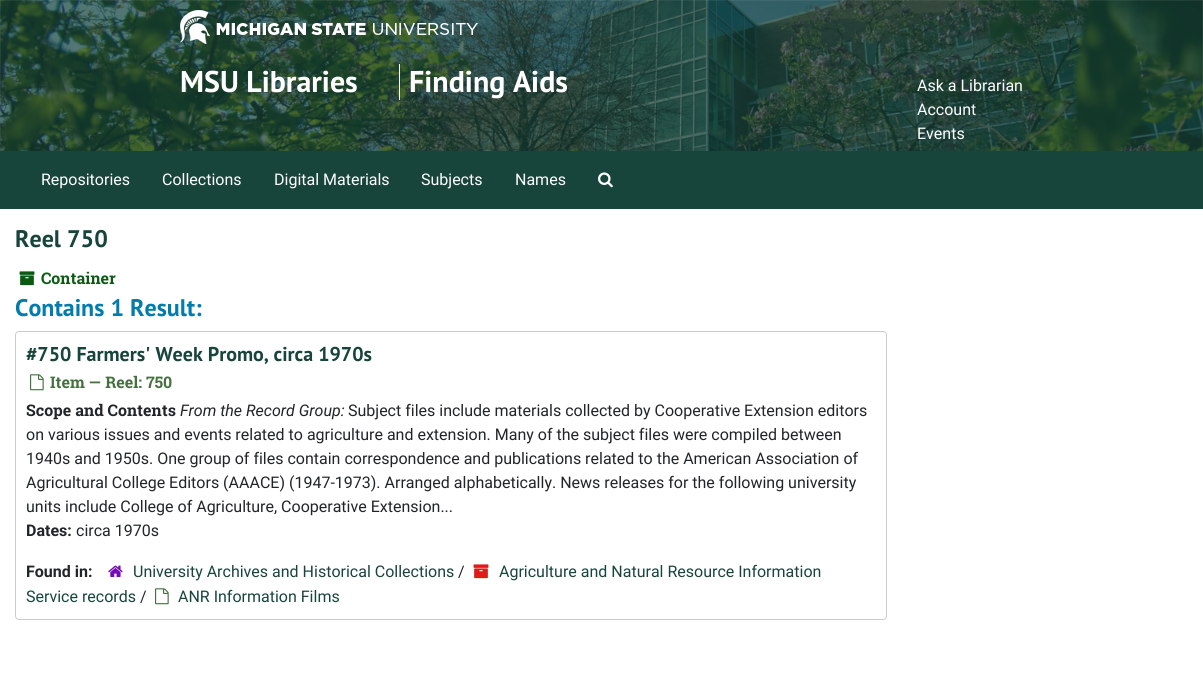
import math
import cairocffi as cairo

surface = cairo.ImageSurface(cairo.FORMAT_RGB24, 1203, 678)
cr = cairo.Context(surface)
options = cairo.FontOptions()
options.set_hint_metrics(cairo.HINT_METRICS_OFF)
options.set_hint_style(cairo.HINT_STYLE_NONE)
cr.set_font_options(options)
cr.set_miter_limit(4)


def use_color(code):
    cr.set_source_rgb(*(v / 255 for v in bytes.fromhex(code[-6:])))


def round_rect(x, y, w, h, r):
    cr.new_sub_path()
    for i, (u, v) in enumerate([(x + w - r, y + h - r), (x + r, y + h - r), (x + r, y + r), (x + w - r, y + r)]):
        cr.arc(u, v, r, i * math.pi / 2, (i + 1) * math.pi / 2)
    cr.close_path()


def picture(path, x, y, w, h):
    cr.save()
    cr.set_source_surface(cairo.ImageSurface.create_from_png(path), x, y)
    cr.rectangle(x, y, w, h)
    cr.fill()
    cr.restore()


use_color("#ffffff")
cr.paint()
picture("img1.png", 0, 0, 1203, 151)
picture("img2.png", 180, 10, 298, 34)
use_color("#ffffff")
cr.rectangle(399, 64, 1, 36)
cr.fill()
cr.select_font_face("PT Sans", cairo.FONT_SLANT_NORMAL, cairo.FONT_WEIGHT_BOLD)
cr.set_font_size(30)
cr.move_to(180, 92)
cr.show_text("MSU Libraries")
cr.move_to(409, 92)
cr.show_text("Finding Aids")
cr.select_font_face("Roboto")
cr.set_font_size(16)
cr.move_to(917, 91)
cr.show_text("Ask a Librarian")
cr.move_to(917, 115)
cr.show_text("Account")
cr.move_to(917, 139)
cr.show_text("Events")
cr.rectangle(0.5, 151.5, 1202, 57)
use_color("#18453b")
cr.set_line_width(1)
cr.stroke()
cr.rectangle(1, 152, 1201, 56)
cr.fill()
use_color("#ffffff")
cr.move_to(41, 185)
cr.show_text("Repositories")
cr.move_to(162, 185)
cr.show_text("Collections")
cr.move_to(274, 185)
cr.show_text("Digital Materials")
cr.move_to(421, 185)
cr.show_text("Subjects")
cr.move_to(515, 185)
cr.show_text("Names")
picture("img3.png", 598, 172, 15, 16)
cr.select_font_face("PT Sans", cairo.FONT_SLANT_NORMAL, cairo.FONT_WEIGHT_BOLD)
cr.set_font_size(24)
use_color("#18453b")
cr.move_to(15, 247)
cr.show_text("Reel 750")
picture("img4.png", 19, 271, 16, 15)
cr.select_font_face("Roboto Slab", cairo.FONT_SLANT_NORMAL, cairo.FONT_WEIGHT_BOLD)
cr.set_font_size(16)
use_color("#0b5a14")
cr.move_to(41, 284)
cr.show_text("Container")
cr.select_font_face("PT Sans", cairo.FONT_SLANT_NORMAL, cairo.FONT_WEIGHT_BOLD)
cr.set_font_size(24)
use_color("#007cad")
cr.move_to(15, 316)
cr.show_text("Contains 1 Result:")
round_rect(15.5, 331.5, 871, 288, 3.5)
use_color("#cccccc")
cr.stroke()
cr.set_font_size(20)
use_color("#18453b")
cr.move_to(26, 361)
cr.show_text("#750 Farmers' Week Promo, circa 1970s")
picture("img5.png", 30, 374, 14, 17)
cr.select_font_face("Roboto Slab", cairo.FONT_SLANT_NORMAL, cairo.FONT_WEIGHT_BOLD)
cr.set_font_size(16)
use_color("#457141")
cr.move_to(50, 388)
cr.show_text("Item — Reel: 750")
use_color("#212529")
cr.move_to(26, 416)
cr.show_text("Scope and Contents")
cr.select_font_face("Roboto", cairo.FONT_SLANT_ITALIC)
cr.move_to(180, 416)
cr.show_text("From the Record Group:")
cr.select_font_face("Roboto")
cr.move_to(348, 416)
cr.show_text("Subject files include materials collected by Cooperative Extension editors")
cr.move_to(26, 440)
cr.show_text("on various issues and events related to agriculture and extension. Many of the subject files were compiled between")
cr.move_to(26, 464)
cr.show_text("1940s and 1950s. One group of files contain correspondence and publications related to the American Association of")
cr.move_to(26, 488)
cr.show_text("Agricultural College Editors (AAACE) (1947-1973). Arranged alphabetically. News releases for the following university")
cr.move_to(26, 512)
cr.show_text("units include College of Agriculture, Cooperative Extension...")
cr.select_font_face("Roboto", cairo.FONT_SLANT_NORMAL, cairo.FONT_WEIGHT_BOLD)
cr.move_to(26, 536)
cr.show_text("Dates:")
cr.select_font_face("Roboto")
cr.move_to(76, 536)
cr.show_text("circa 1970s")
picture("img6.png", 473, 564, 16, 15)
use_color("#18453b")
cr.move_to(499, 577)
cr.show_text("Agriculture and Natural Resource Information")
cr.move_to(26, 602)
cr.show_text("Service records")
cr.select_font_face("Roboto", cairo.FONT_SLANT_NORMAL, cairo.FONT_WEIGHT_BOLD)
use_color("#212529")
cr.move_to(26, 577)
cr.show_text("Found in:")
picture("img7.png", 108, 565, 15, 12)
cr.select_font_face("Roboto")
use_color("#18453b")
cr.move_to(133, 577)
cr.show_text("University Archives and Historical Collections")
use_color("#212529")
cr.move_to(458, 577)
cr.show_text("/")
cr.move_to(140, 602)
cr.show_text("/")
picture("img5.png", 155, 588, 14, 17)
use_color("#18453b")
cr.move_to(178, 602)
cr.show_text("ANR Information Films")
surface.write_to_png("result.png")
